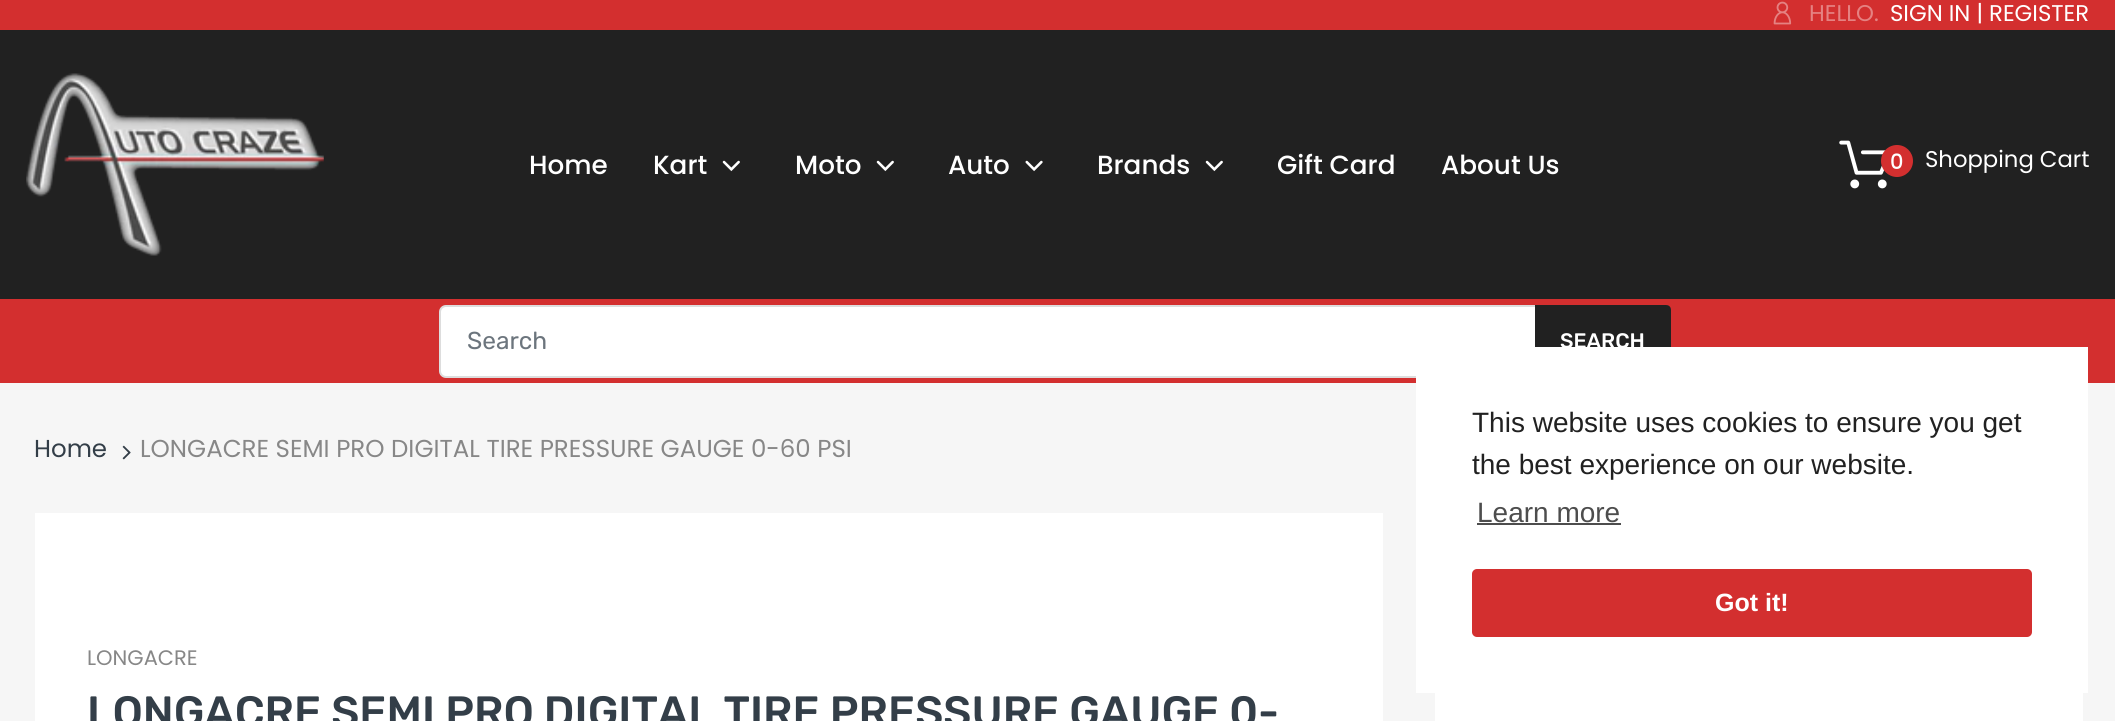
import math
import cairocffi as cairo

surface = cairo.ImageSurface(cairo.FORMAT_RGB24, 2115, 721)
cr = cairo.Context(surface)
options = cairo.FontOptions()
options.set_hint_metrics(cairo.HINT_METRICS_OFF)
options.set_hint_style(cairo.HINT_STYLE_NONE)
cr.set_font_options(options)
cr.set_miter_limit(4)


def use_color(code):
    cr.set_source_rgb(*(v / 255 for v in bytes.fromhex(code[-6:])))


def round_rect(x, y, w, h, r):
    cr.new_sub_path()
    for i, (u, v) in enumerate([(x + w - r, y + h - r), (x + r, y + h - r), (x + r, y + r), (x + w - r, y + r)]):
        cr.arc(u, v, r, i * math.pi / 2, (i + 1) * math.pi / 2)
    cr.close_path()


def picture(path, x, y, w, h):
    cr.save()
    cr.set_source_surface(cairo.ImageSurface.create_from_png(path), x, y)
    cr.rectangle(x, y, w, h)
    cr.fill()
    cr.restore()


use_color("#f6f6f6")
cr.paint()
use_color("#212121")
cr.rectangle(0, 30, 2115, 269)
cr.fill()
use_color("#d32f2f")
cr.rectangle(0, 0, 2115, 30)
cr.fill()
picture("img1.png", 1773, 1, 19, 24)
cr.select_font_face("Poppins")
cr.set_font_size(22.75)
use_color("#e58282")
cr.move_to(1809, 21)
cr.show_text("HELLO.")
use_color("#ffffff")
cr.move_to(1890, 21)
cr.show_text("SIGN IN | REGISTER")
picture("img2.png", 26, 73, 298, 183)
cr.select_font_face("Poppins Medium")
cr.set_font_size(26.25)
cr.move_to(529, 174)
cr.show_text("Home")
cr.move_to(653, 174)
cr.show_text("Kart")
picture("img3.png", 722, 160, 18, 12)
cr.move_to(795, 174)
cr.show_text("Moto")
picture("img3.png", 876, 160, 18, 12)
cr.move_to(948, 174)
cr.show_text("Auto")
picture("img4.png", 1025, 160, 18, 12)
cr.move_to(1097, 174)
cr.show_text("Brands")
picture("img3.png", 1205, 160, 18, 12)
cr.move_to(1277, 174)
cr.show_text("Gift Card")
cr.move_to(1441, 174)
cr.show_text("About Us")
picture("img5.png", 1839, 140, 48, 49)
use_color("#d32f2f")
cr.arc(1897, 161, 16, 0, 2 * math.pi)
cr.fill()
cr.set_font_size(21)
use_color("#ffffff")
cr.move_to(1890, 169)
cr.show_text("0")
cr.select_font_face("Poppins")
cr.set_font_size(22.75)
cr.move_to(1925, 167)
cr.show_text("Shopping Cart")
use_color("#d32f2f")
cr.rectangle(0, 299, 2115, 84)
cr.fill()
use_color("#ffffff")
round_rect(440, 306, 1230, 71, 6)
cr.fill_preserve()
use_color("#dddddd")
cr.stroke()
cr.select_font_face("Rubik")
cr.set_font_size(24.5)
use_color("#6c757d")
cr.move_to(467, 349)
cr.show_text("Search")
use_color("#212121")
cr.new_path()
cr.move_to(1535, 305)
cr.line_to(1666, 305)
cr.curve_to(1669, 305, 1671, 307, 1671, 310)
cr.line_to(1671, 373)
cr.curve_to(1671, 376, 1669, 378, 1666, 378)
cr.line_to(1535, 378)
cr.close_path()
cr.fill()
cr.select_font_face("Rubik Medium")
cr.set_font_size(21)
use_color("#ffffff")
cr.move_to(1560, 348)
cr.show_text("SEARCH")
cr.select_font_face("Poppins")
cr.set_font_size(24.5)
use_color("#333e48")
cr.move_to(34, 457)
cr.show_text("Home")
picture("img6.png", 122, 445, 9, 15)
use_color("#878787")
cr.move_to(140, 457)
cr.show_text("LONGACRE SEMI PRO DIGITAL TIRE PRESSURE GAUGE 0-60 PSI")
use_color("#ffffff")
cr.rectangle(35, 513, 1348, 208)
cr.fill()
cr.set_font_size(21)
use_color("#878787")
cr.move_to(87, 665)
cr.show_text("LONGACRE")
cr.select_font_face("Rubik Medium")
cr.set_font_size(43.75)
use_color("#333e48")
cr.move_to(87, 727)
cr.show_text("LONGACRE SEMI PRO DIGITAL TIRE PRESSURE GAUGE 0-")
use_color("#ffffff")
cr.rectangle(1435, 693, 648, 28)
cr.fill()
cr.rectangle(1416, 347, 672, 346)
cr.fill()
cr.select_font_face("Liberation Sans")
cr.set_font_size(28)
use_color("#212121")
cr.move_to(1472, 432)
cr.show_text("This website uses cookies to ensure you get")
cr.move_to(1472, 474)
cr.show_text("the best experience on our website.")
use_color("#4d4d4d")
cr.move_to(1477, 522)
cr.show_text("Learn more")
cr.rectangle(1477, 523, 144, 2)
cr.fill()
use_color("#d32f2f")
round_rect(1472, 569, 560, 68, 5)
cr.fill()
cr.select_font_face("Liberation Sans", cairo.FONT_SLANT_NORMAL, cairo.FONT_WEIGHT_BOLD)
cr.set_font_size(25)
use_color("#ffffff")
cr.move_to(1715, 611)
cr.show_text("Got it!")
surface.write_to_png("result.png")
